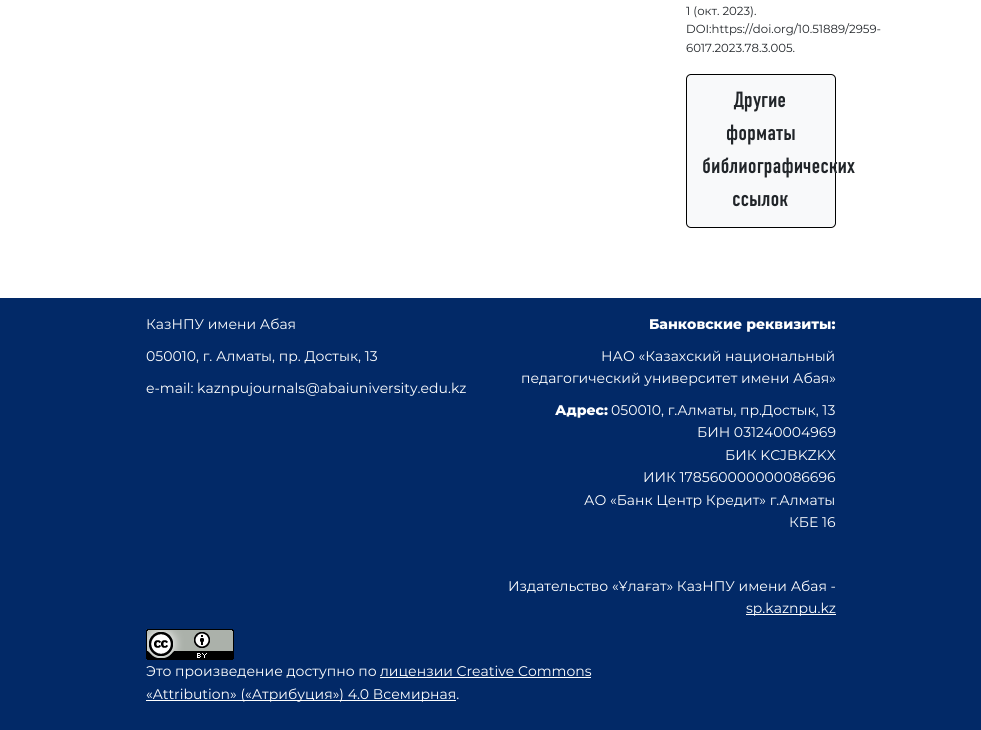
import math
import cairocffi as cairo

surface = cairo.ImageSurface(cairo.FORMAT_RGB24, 981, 730)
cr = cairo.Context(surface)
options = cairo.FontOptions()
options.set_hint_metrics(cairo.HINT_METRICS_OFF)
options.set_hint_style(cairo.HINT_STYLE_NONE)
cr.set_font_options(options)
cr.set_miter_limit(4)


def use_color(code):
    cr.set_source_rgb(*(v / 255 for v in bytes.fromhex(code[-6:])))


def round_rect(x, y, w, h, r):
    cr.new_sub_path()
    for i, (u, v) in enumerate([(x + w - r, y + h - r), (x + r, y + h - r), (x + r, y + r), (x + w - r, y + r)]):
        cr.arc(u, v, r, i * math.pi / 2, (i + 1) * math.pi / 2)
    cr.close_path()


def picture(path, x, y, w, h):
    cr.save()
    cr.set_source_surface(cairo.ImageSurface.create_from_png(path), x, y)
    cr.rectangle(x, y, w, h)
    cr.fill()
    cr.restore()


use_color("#ffffff")
cr.paint()
cr.select_font_face("Montserrat")
cr.set_font_size(11.7)
use_color("#212529")
cr.move_to(686, 15)
cr.show_text("1 (окт. 2023).")
cr.move_to(686, 33)
cr.show_text("DOI:https://doi.org/10.51889/2959-")
cr.move_to(686, 52)
cr.show_text("6017.2023.78.3.005.")
use_color("#f8f9fa")
round_rect(686.5, 74.5, 149, 153, 4.5)
cr.fill_preserve()
use_color("#000000")
cr.set_line_width(1)
cr.stroke()
cr.select_font_face("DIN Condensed")
cr.set_font_size(22)
use_color("#212529")
cr.move_to(734, 107)
cr.show_text("Другие")
cr.move_to(726, 140)
cr.show_text("форматы")
cr.move_to(702, 173)
cr.show_text("библиографических")
cr.move_to(732, 206)
cr.show_text("ссылок")
use_color("#022967")
cr.rectangle(0, 298, 981, 432)
cr.fill()
cr.select_font_face("Montserrat")
cr.set_font_size(14)
use_color("#ffffff")
cr.move_to(146, 329)
cr.show_text("КазНПУ имени Абая")
cr.move_to(146, 361)
cr.show_text("050010, г. Алматы, пр. Достык, 13")
cr.move_to(146, 393)
cr.show_text("e-mail: kaznpujournals@abaiuniversity.edu.kz")
cr.select_font_face("Montserrat ExtraBold")
cr.move_to(649, 329)
cr.show_text("Банковские реквизиты:")
cr.select_font_face("Montserrat")
cr.move_to(601, 361)
cr.show_text("НАО «Казахский национальный")
cr.move_to(521, 383)
cr.show_text("педагогический университет имени Абая»")
cr.select_font_face("Montserrat ExtraBold")
cr.move_to(555, 415)
cr.show_text("Адрес:")
cr.select_font_face("Montserrat")
cr.move_to(611, 415)
cr.show_text("050010, г.Алматы, пр.Достык, 13")
cr.move_to(697, 437)
cr.show_text("БИН 031240004969")
cr.move_to(725, 460)
cr.show_text("БИК KCJBKZKX")
cr.move_to(643, 482)
cr.show_text("ИИК 178560000000086696")
cr.move_to(584, 505)
cr.show_text("АО «Банк Центр Кредит» г.Алматы")
cr.move_to(789, 527)
cr.show_text("КБЕ 16")
cr.move_to(508, 591)
cr.show_text("Издательство «Ұлағат» КазНПУ имени Абая -")
cr.rectangle(746, 614, 90, 1)
cr.fill()
cr.move_to(746, 613)
cr.show_text("sp.kaznpu.kz")
picture("img1.png", 146, 629, 88, 31)
cr.move_to(146, 676)
cr.show_text("Это произведение доступно по")
cr.rectangle(380, 677, 211, 1)
cr.fill()
cr.move_to(380, 676)
cr.show_text("лицензии Creative Commons")
cr.rectangle(146, 700, 310, 1)
cr.fill()
cr.move_to(146, 699)
cr.show_text("«Attribution» («Атрибуция») 4.0 Всемирная.")
surface.write_to_png("result.png")
